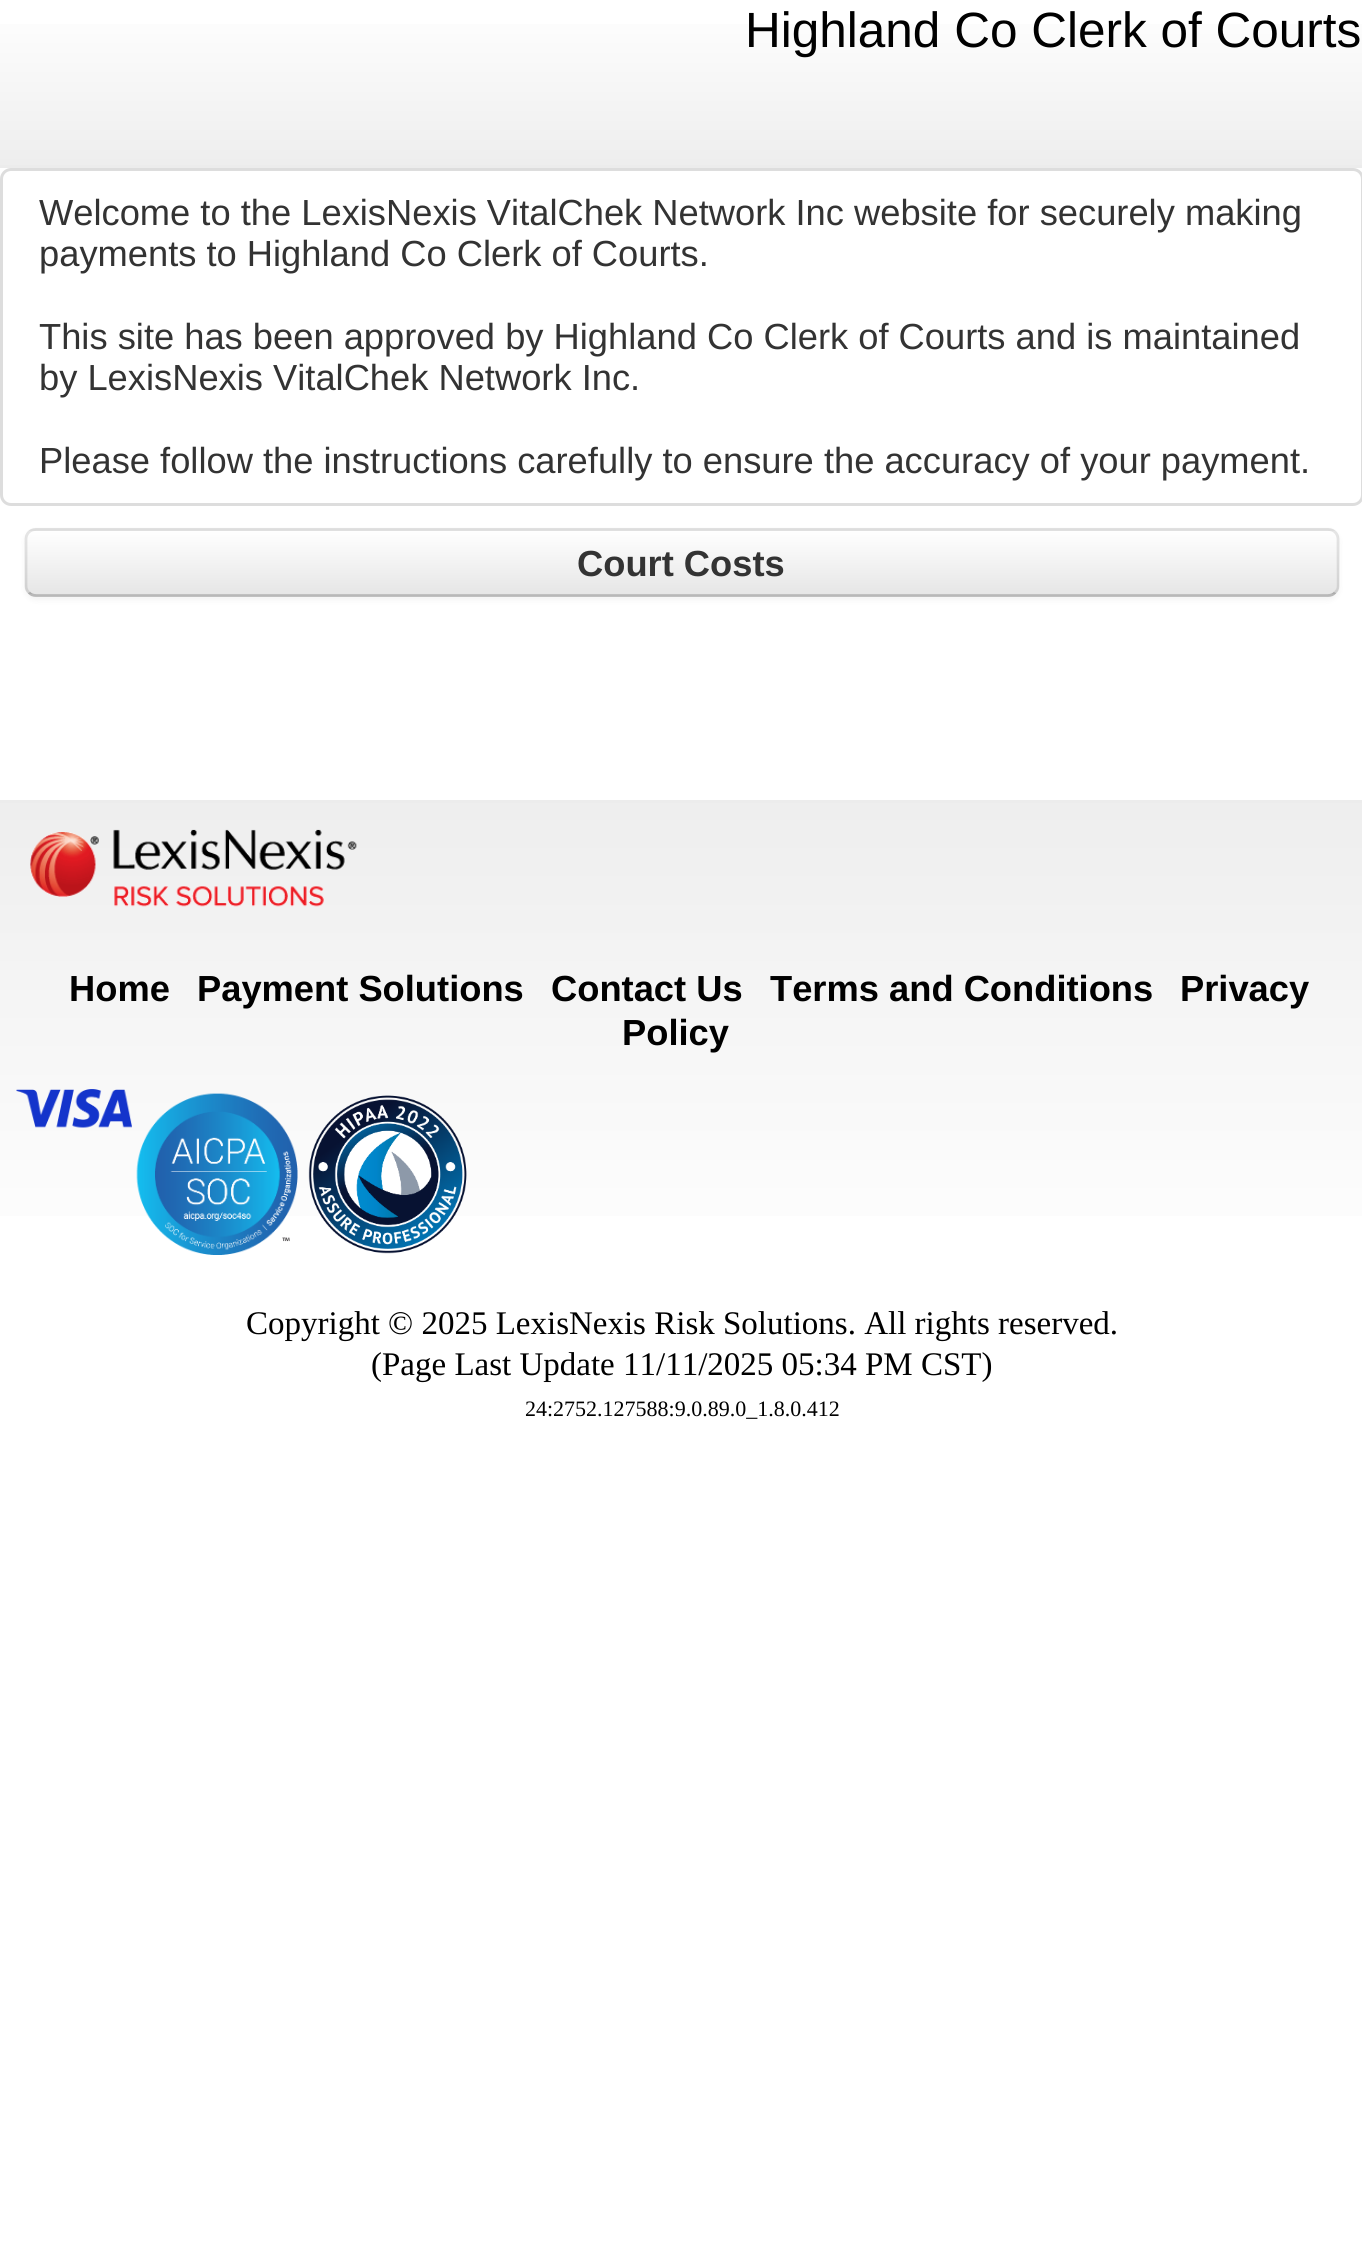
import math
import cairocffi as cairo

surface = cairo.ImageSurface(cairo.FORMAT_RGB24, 1362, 2241)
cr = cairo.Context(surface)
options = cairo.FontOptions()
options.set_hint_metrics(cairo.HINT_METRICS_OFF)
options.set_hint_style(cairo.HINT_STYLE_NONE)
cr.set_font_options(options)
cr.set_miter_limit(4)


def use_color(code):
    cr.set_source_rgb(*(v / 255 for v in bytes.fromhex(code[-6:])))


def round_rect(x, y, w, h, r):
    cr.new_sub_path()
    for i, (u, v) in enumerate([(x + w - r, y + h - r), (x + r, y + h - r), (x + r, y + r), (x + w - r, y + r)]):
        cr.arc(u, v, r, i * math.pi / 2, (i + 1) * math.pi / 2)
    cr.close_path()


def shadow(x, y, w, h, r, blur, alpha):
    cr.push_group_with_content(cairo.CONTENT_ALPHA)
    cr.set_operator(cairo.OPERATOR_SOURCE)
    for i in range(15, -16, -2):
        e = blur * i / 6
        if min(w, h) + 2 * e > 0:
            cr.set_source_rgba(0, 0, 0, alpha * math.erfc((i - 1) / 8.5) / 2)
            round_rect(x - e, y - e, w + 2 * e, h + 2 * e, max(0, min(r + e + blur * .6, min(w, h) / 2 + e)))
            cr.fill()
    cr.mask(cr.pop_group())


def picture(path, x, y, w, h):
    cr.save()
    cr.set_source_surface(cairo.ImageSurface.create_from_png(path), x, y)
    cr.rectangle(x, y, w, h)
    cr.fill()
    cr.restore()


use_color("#ffffff")
cr.paint()
gradient = cairo.LinearGradient(0, 0, 0, 165)
gradient.add_color_stop_rgba(0, 1, 1, 1, 1)
gradient.add_color_stop_rgba(1, 0.933, 0.933, 0.933, 1)
cr.set_source(gradient)
cr.rectangle(0, 24, 1362, 141)
cr.fill()
use_color("#ececec")
cr.rectangle(0, 165, 1362, 3)
cr.fill()
cr.select_font_face("Liberation Sans")
cr.set_font_size(49.5)
use_color("#000000")
cr.move_to(745, 47)
cr.show_text("Highland Co Clerk of Courts")
round_rect(1.5, 169.5, 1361, 335, 9.5)
use_color("#dddddd")
cr.set_line_width(3)
cr.stroke()
cr.set_font_size(36.3)
use_color("#333333")
cr.move_to(39, 225)
cr.show_text("Welcome to the LexisNexis VitalChek Network Inc website for securely making")
cr.move_to(39, 266)
cr.show_text("payments to Highland Co Clerk of Courts.")
cr.move_to(39, 349)
cr.show_text("This site has been approved by Highland Co Clerk of Courts and is maintained")
cr.move_to(39, 390)
cr.show_text("by LexisNexis VitalChek Network Inc.")
cr.move_to(39, 473)
cr.show_text("Please follow the instructions carefully to ensure the accuracy of your payment.")
use_color("#000000")
shadow(25, 531, 1314, 69, 11, 3, 0.05)
use_color("#f5f5f5")
round_rect(25, 528, 1314, 69, 11)
cr.fill()
cr.save()
round_rect(25, 528, 1314, 69, 11)
cr.clip()
gradient = cairo.LinearGradient(682, 531, 682, 594)
gradient.add_color_stop_rgba(0, 1, 1, 1, 1)
gradient.add_color_stop_rgba(1, 0.902, 0.902, 0.902, 1)
cr.set_source(gradient)
cr.rectangle(25, 531, 1314, 63)
cr.fill()
cr.restore()
cr.set_source_rgba(1, 1, 1, 0.2)
cr.new_path()
cr.move_to(36, 534)
cr.line_to(1328, 534)
cr.curve_to(1333, 534, 1336, 537, 1336, 542)
cr.line_to(1336, 590)
cr.curve_to(1337, 589, 1337, 588, 1337, 586)
cr.line_to(1337, 539)
cr.curve_to(1337, 535, 1333, 531, 1329, 531)
cr.line_to(36, 531)
cr.curve_to(32, 531, 28, 535, 28, 539)
cr.line_to(28, 542)
cr.curve_to(28, 537, 31, 534, 36, 534)
cr.close_path()
cr.fill()
cr.new_path()
cr.move_to(1335, 592.5)
cr.curve_to(1333.5, 594.5, 1331, 595.5, 1328, 595.5)
cr.line_to(36, 595.5)
cr.curve_to(33, 595.5, 30.5, 594.5, 29, 592.5)
cr.set_source_rgba(0, 0, 0, 0.25)
cr.set_line_width(2.8)
cr.stroke()
cr.new_path()
cr.move_to(29, 592.5)
cr.curve_to(27, 591, 26, 588.5, 26, 586)
cr.line_to(26, 539)
cr.curve_to(26, 536.5, 27, 534, 29, 532)
cr.curve_to(30.5, 530.5, 33, 529.5, 36, 529.5)
cr.line_to(1328, 529.5)
cr.curve_to(1331, 529.5, 1333.5, 530.5, 1335, 532)
cr.curve_to(1337, 534, 1338, 536.5, 1338, 539)
cr.line_to(1338, 586)
cr.curve_to(1338, 588.5, 1337, 591, 1335, 592.5)
cr.set_source_rgba(0, 0, 0, 0.1)
cr.stroke()
cr.select_font_face("Liberation Sans", cairo.FONT_SLANT_NORMAL, cairo.FONT_WEIGHT_BOLD)
use_color("#333333")
cr.move_to(577, 576)
cr.show_text("Court Costs")
gradient = cairo.LinearGradient(0, 803, 0, 1287)
gradient.add_color_stop_rgba(0, 0.933, 0.933, 0.933, 1)
gradient.add_color_stop_rgba(1, 1, 1, 1, 1)
cr.set_source(gradient)
cr.rectangle(0, 803, 1362, 413)
cr.fill()
use_color("#ececec")
cr.rectangle(0, 800, 1362, 3)
cr.fill()
picture("img1.png", 30, 829, 327, 78)
use_color("#000000")
cr.move_to(69, 1001)
cr.show_text("Home")
cr.move_to(197, 1001)
cr.show_text("Payment Solutions")
cr.move_to(551, 1001)
cr.show_text("Contact Us")
cr.move_to(770, 1001)
cr.show_text("Terms and Conditions")
cr.move_to(1180, 1001)
cr.show_text("Privacy")
cr.move_to(622, 1045)
cr.show_text("Policy")
picture("img2.png", 16, 1089, 116, 39)
picture("img3.png", 136, 1093, 162, 162)
picture("img4.png", 308, 1095, 159, 159)
cr.select_font_face("Liberation Serif")
cr.set_font_size(33)
cr.move_to(246, 1334)
cr.show_text("Copyright © 2025 LexisNexis Risk Solutions. All rights reserved.")
cr.move_to(371, 1375)
cr.show_text("(Page Last Update 11/11/2025 05:34 PM CST)")
cr.set_font_size(22)
cr.move_to(525, 1416)
cr.show_text("24:2752.127588:9.0.89.0_1.8.0.412")
surface.write_to_png("result.png")
